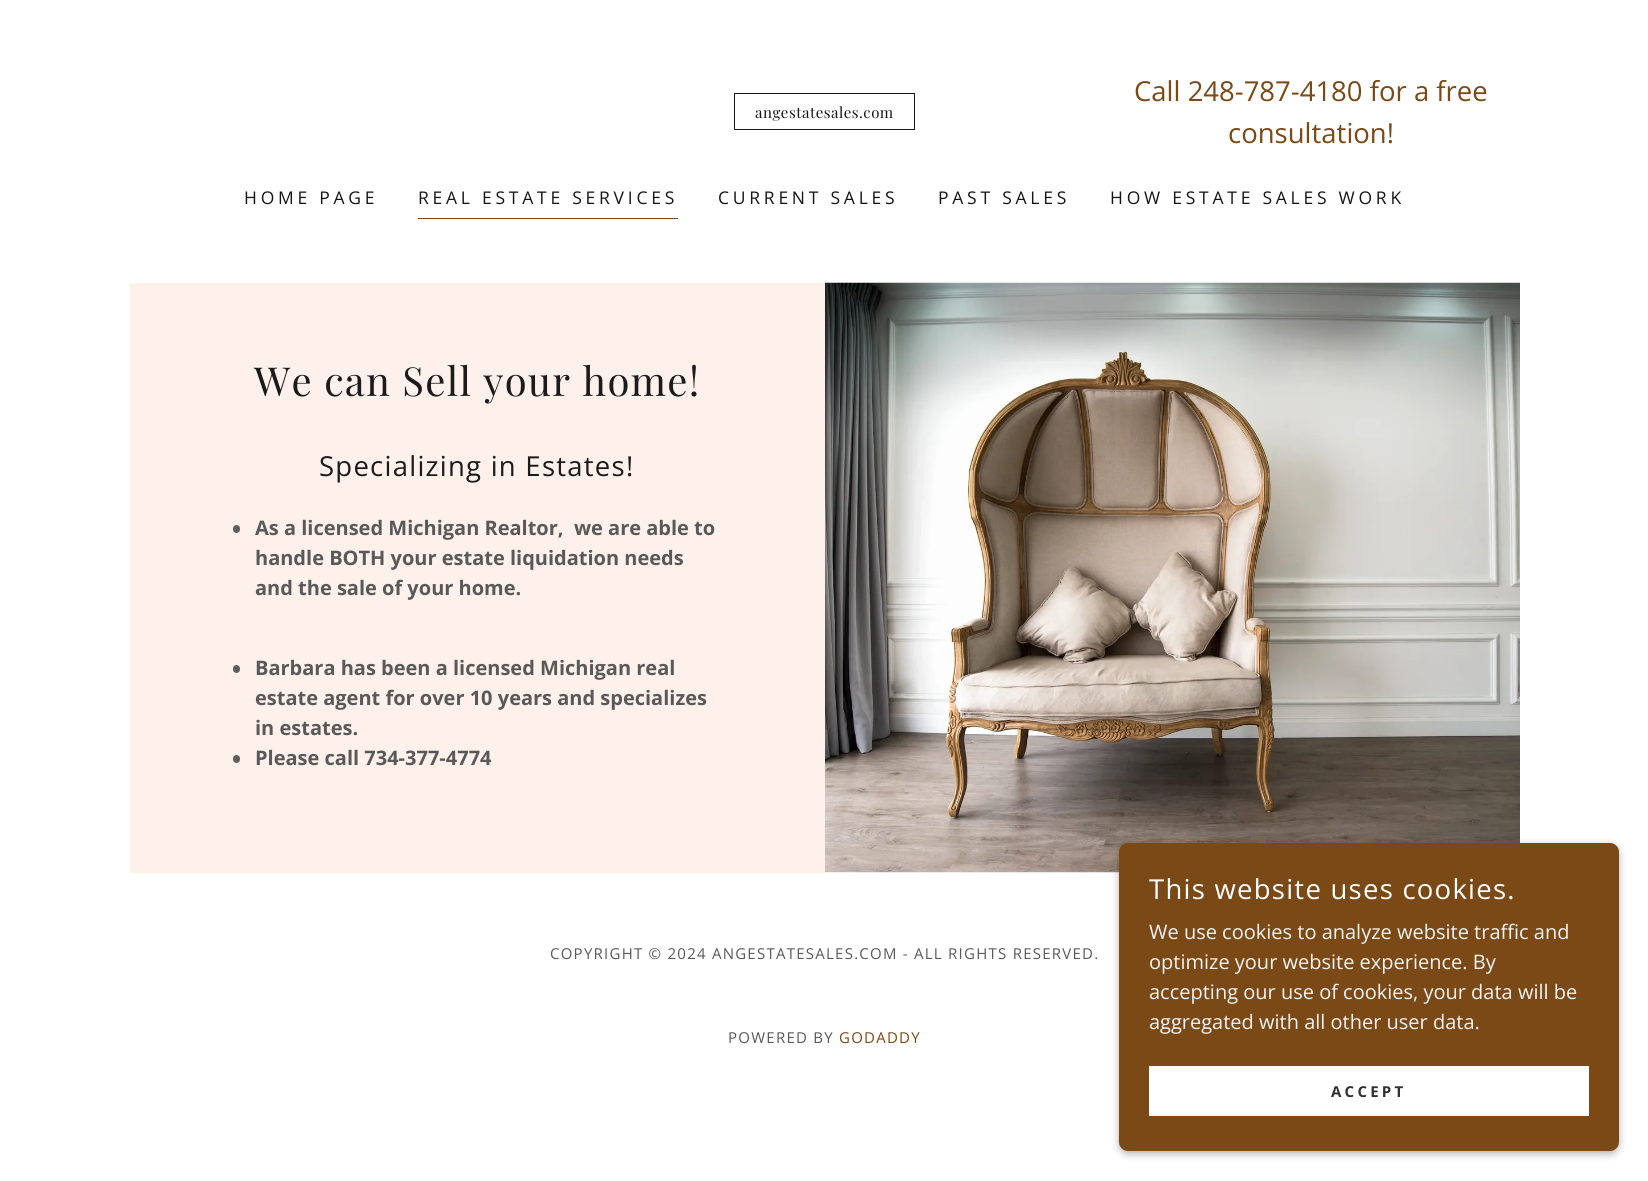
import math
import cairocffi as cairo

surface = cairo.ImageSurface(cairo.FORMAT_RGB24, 1648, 1181)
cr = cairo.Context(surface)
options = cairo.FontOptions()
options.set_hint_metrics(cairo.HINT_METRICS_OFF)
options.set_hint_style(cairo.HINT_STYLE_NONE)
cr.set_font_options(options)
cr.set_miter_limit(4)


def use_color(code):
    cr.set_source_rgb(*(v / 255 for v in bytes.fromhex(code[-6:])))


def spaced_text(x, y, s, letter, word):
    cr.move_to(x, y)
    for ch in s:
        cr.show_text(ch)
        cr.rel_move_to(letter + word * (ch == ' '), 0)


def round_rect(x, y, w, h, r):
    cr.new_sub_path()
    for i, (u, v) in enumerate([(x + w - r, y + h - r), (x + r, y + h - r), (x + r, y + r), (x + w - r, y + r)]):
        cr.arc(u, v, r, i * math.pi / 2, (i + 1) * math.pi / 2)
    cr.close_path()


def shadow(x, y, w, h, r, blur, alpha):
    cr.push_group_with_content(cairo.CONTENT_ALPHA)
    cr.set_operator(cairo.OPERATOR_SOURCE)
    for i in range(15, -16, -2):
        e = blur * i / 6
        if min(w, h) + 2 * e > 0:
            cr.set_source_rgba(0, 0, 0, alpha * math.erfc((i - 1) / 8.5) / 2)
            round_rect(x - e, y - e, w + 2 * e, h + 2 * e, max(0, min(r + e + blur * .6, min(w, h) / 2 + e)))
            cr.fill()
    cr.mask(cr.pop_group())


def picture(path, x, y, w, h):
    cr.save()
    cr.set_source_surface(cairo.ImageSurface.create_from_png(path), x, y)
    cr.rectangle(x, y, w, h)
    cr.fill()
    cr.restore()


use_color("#ffffff")
cr.paint()
cr.rectangle(734.5, 93.5, 180, 36)
use_color("#151515")
cr.set_line_width(1)
cr.stroke()
cr.select_font_face("Playfair Display")
cr.set_font_size(15)
spaced_text(755, 118, "angestatesales.com", 0.5, 0)
cr.select_font_face("Open Sans")
cr.set_font_size(27.5)
use_color("#7a4916")
cr.move_to(1134, 101)
cr.show_text("Call 248-787-4180 for a free")
cr.move_to(1228, 143)
cr.show_text("consultation!")
cr.set_font_size(17.5)
use_color("#151515")
spaced_text(244, 204, "HOME PAGE", 3.75, 0)
use_color("#7a4916")
cr.rectangle(418, 218, 260, 1)
cr.fill()
use_color("#151515")
spaced_text(418, 204, "REAL ESTATE SERVICES", 3.75, 0)
spaced_text(718, 204, "CURRENT SALES", 3.75, 0)
spaced_text(938, 204, "PAST SALES", 3.75, 0)
spaced_text(1110, 204, "HOW ESTATE SALES WORK", 3.75, 0)
use_color("#fef1eb")
cr.rectangle(130, 283, 695, 590)
cr.fill()
cr.select_font_face("Playfair Display")
cr.set_font_size(40)
use_color("#1b1b1b")
spaced_text(254, 396, "We can Sell your home!", 1.25, 0)
cr.select_font_face("Open Sans")
cr.set_font_size(27.5)
spaced_text(319, 476, "Specializing in Estates!", 1.25, 0)
use_color("#5e5e5e")
round_rect(233, 525, 7, 8, 3.5)
cr.fill()
cr.select_font_face("Open Sans", cairo.FONT_SLANT_NORMAL, cairo.FONT_WEIGHT_BOLD)
cr.set_font_size(20)
use_color("#595959")
cr.move_to(255, 535)
cr.show_text("As a licensed Michigan Realtor,  we are able to")
cr.move_to(255, 565)
cr.show_text("handle BOTH your estate liquidation needs")
cr.move_to(255, 595)
cr.show_text("and the sale of your home.")
use_color("#5e5e5e")
round_rect(233, 665, 7, 8, 3.5)
cr.fill()
use_color("#595959")
cr.move_to(255, 675)
cr.show_text("Barbara has been a licensed Michigan real")
cr.move_to(255, 705)
cr.show_text("estate agent for over 10 years and specializes")
cr.move_to(255, 735)
cr.show_text("in estates.")
use_color("#5e5e5e")
round_rect(233, 755, 7, 8, 3.5)
cr.fill()
use_color("#595959")
cr.move_to(255, 765)
cr.show_text("Please call 734-377-4774")
picture("img1.png", 825, 282, 695, 591)
cr.select_font_face("Open Sans")
cr.set_font_size(15)
spaced_text(550, 959, "COPYRIGHT © 2024 ANGESTATESALES.COM - ALL RIGHTS RESERVED.", 1.25, 0)
spaced_text(728, 1043, "POWERED BY", 1.25, 0)
use_color("#7a4916")
spaced_text(839, 1043, "GODADDY", 1.25, 0)
use_color("#000000")
shadow(1119, 845, 500, 309, 9, 4, 0.3)
use_color("#7a4916")
round_rect(1119, 843, 500, 308, 9)
cr.fill()
cr.set_font_size(27.5)
use_color("#ffffff")
spaced_text(1149, 899, "This website uses cookies.", 1.25, 0)
cr.set_font_size(20)
use_color("#f4f3f3")
cr.move_to(1149, 939)
cr.show_text("We use cookies to analyze website traffic and")
cr.move_to(1149, 969)
cr.show_text("optimize your website experience. By")
cr.move_to(1149, 999)
cr.show_text("accepting our use of cookies, your data will be")
cr.move_to(1149, 1029)
cr.show_text("aggregated with all other user data.")
use_color("#ffffff")
cr.rectangle(1149, 1066, 440, 50)
cr.fill()
cr.select_font_face("Open Sans", cairo.FONT_SLANT_NORMAL, cairo.FONT_WEIGHT_BOLD)
cr.set_font_size(15)
use_color("#303030")
spaced_text(1331, 1097, "ACCEPT", 3.25, 0)
surface.write_to_png("result.png")
